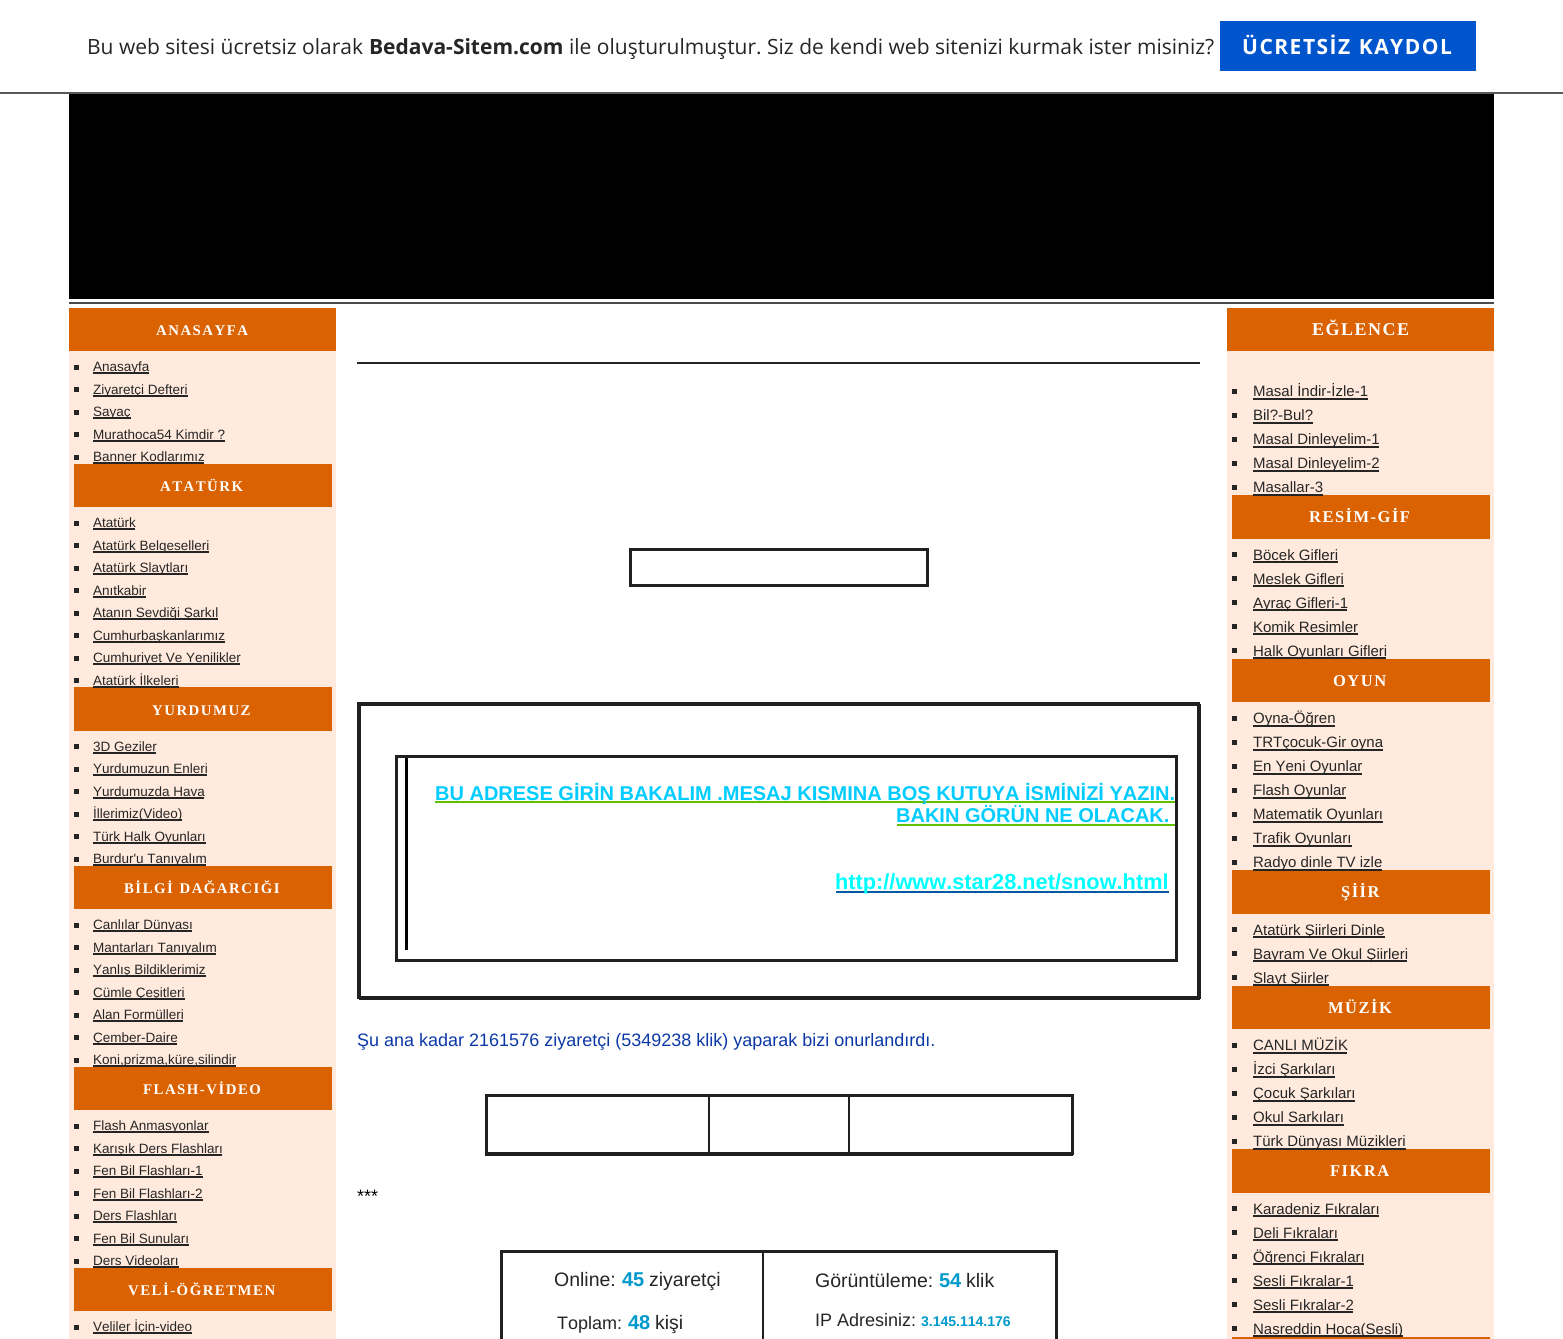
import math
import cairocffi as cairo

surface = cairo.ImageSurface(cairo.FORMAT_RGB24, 1563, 1339)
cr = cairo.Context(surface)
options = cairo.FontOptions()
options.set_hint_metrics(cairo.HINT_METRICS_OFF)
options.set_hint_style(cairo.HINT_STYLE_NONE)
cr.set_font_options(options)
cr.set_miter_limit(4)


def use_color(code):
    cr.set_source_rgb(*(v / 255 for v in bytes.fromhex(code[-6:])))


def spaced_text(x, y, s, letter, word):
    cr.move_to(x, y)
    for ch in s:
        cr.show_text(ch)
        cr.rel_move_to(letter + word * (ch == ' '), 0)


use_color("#ffffff")
cr.paint()
use_color("#5a5a5a")
cr.rectangle(0, 92, 1563, 2)
cr.fill()
cr.select_font_face("Open Sans")
cr.set_font_size(21)
use_color("#252525")
cr.move_to(87, 54)
cr.show_text("Bu web sitesi ücretsiz olarak")
cr.select_font_face("Open Sans", cairo.FONT_SLANT_NORMAL, cairo.FONT_WEIGHT_BOLD)
cr.move_to(369, 54)
cr.show_text("Bedava-Sitem.com")
cr.select_font_face("Open Sans")
cr.move_to(569, 54)
cr.show_text("ile oluşturulmuştur. Siz de kendi web sitenizi kurmak ister misiniz?")
use_color("#0055cc")
cr.rectangle(1220, 21, 256, 50)
cr.fill()
cr.select_font_face("Open Sans", cairo.FONT_SLANT_NORMAL, cairo.FONT_WEIGHT_BOLD)
use_color("#ffffff")
spaced_text(1242, 54, "ÜCRETSİZ KAYDOL", 1.5, 0)
use_color("#000000")
cr.rectangle(69, 94, 1425, 205)
cr.fill()
use_color("#4a4a4a")
cr.rectangle(69, 302, 1425, 2)
cr.fill()
use_color("#ffeadd")
cr.rectangle(69, 351, 267, 988)
cr.fill()
use_color("#db6201")
cr.rectangle(69, 308, 267, 43)
cr.fill()
cr.select_font_face("Liberation Serif", cairo.FONT_SLANT_NORMAL, cairo.FONT_WEIGHT_BOLD)
cr.set_font_size(14.8)
use_color("#ffffff")
spaced_text(156, 335, "ANASAYFA", 1.5, 0)
use_color("#252525")
cr.rectangle(74, 365, 5, 5)
cr.fill()
cr.rectangle(93, 372, 56, 2)
cr.fill()
cr.select_font_face("Liberation Sans")
cr.set_font_size(13.5)
cr.move_to(93, 371)
cr.show_text("Anasayfa")
cr.rectangle(74, 387, 5, 5)
cr.fill()
cr.rectangle(93, 395, 95, 2)
cr.fill()
cr.move_to(93, 394)
cr.show_text("Ziyaretçi Defteri")
cr.rectangle(74, 410, 5, 5)
cr.fill()
cr.rectangle(93, 417, 38, 2)
cr.fill()
cr.move_to(93, 416)
cr.show_text("Sayaç")
cr.rectangle(74, 432, 5, 5)
cr.fill()
cr.move_to(93, 439)
cr.show_text("Murathoca54 Kimdir ?")
cr.rectangle(93, 440, 132, 2)
cr.fill()
cr.rectangle(74, 455, 5, 5)
cr.fill()
cr.move_to(93, 461)
cr.show_text("Banner Kodlarımız")
cr.rectangle(93, 462, 111, 2)
cr.fill()
use_color("#db6201")
cr.rectangle(74, 464, 258, 43)
cr.fill()
cr.select_font_face("Liberation Serif", cairo.FONT_SLANT_NORMAL, cairo.FONT_WEIGHT_BOLD)
cr.set_font_size(14.8)
use_color("#ffffff")
spaced_text(160, 491, "ATATÜRK", 1.5, 0)
use_color("#252525")
cr.rectangle(74, 521, 5, 5)
cr.fill()
cr.select_font_face("Liberation Sans")
cr.set_font_size(13.5)
cr.move_to(93, 527)
cr.show_text("Atatürk")
cr.rectangle(93, 528, 42, 2)
cr.fill()
cr.rectangle(74, 543, 5, 5)
cr.fill()
cr.rectangle(93, 551, 116, 2)
cr.fill()
cr.move_to(93, 550)
cr.show_text("Atatürk Belgeselleri")
cr.rectangle(74, 566, 5, 5)
cr.fill()
cr.rectangle(93, 573, 95, 2)
cr.fill()
cr.move_to(93, 572)
cr.show_text("Atatürk Slaytları")
cr.rectangle(74, 588, 5, 5)
cr.fill()
cr.move_to(93, 595)
cr.show_text("Anıtkabir")
cr.rectangle(93, 596, 53, 2)
cr.fill()
cr.rectangle(74, 611, 5, 5)
cr.fill()
cr.rectangle(93, 618, 125, 2)
cr.fill()
cr.move_to(93, 617)
cr.show_text("Atanın Sevdiği Şarkıl")
cr.rectangle(74, 633, 5, 5)
cr.fill()
cr.rectangle(93, 641, 132, 2)
cr.fill()
cr.move_to(93, 640)
cr.show_text("Cumhurbaşkanlarımız")
cr.rectangle(74, 656, 5, 5)
cr.fill()
cr.rectangle(93, 663, 147, 2)
cr.fill()
cr.move_to(93, 662)
cr.show_text("Cumhuriyet Ve Yenilikler")
cr.rectangle(74, 678, 5, 5)
cr.fill()
cr.move_to(93, 685)
cr.show_text("Atatürk İlkeleri")
use_color("#db6201")
cr.rectangle(74, 687, 258, 44)
cr.fill()
use_color("#252525")
cr.rectangle(93, 686, 86, 2)
cr.fill()
cr.select_font_face("Liberation Serif", cairo.FONT_SLANT_NORMAL, cairo.FONT_WEIGHT_BOLD)
cr.set_font_size(14.8)
use_color("#ffffff")
spaced_text(152, 715, "YURDUMUZ", 1.5, 0)
use_color("#252525")
cr.rectangle(74, 744, 5, 5)
cr.fill()
cr.select_font_face("Liberation Sans")
cr.set_font_size(13.5)
cr.move_to(93, 751)
cr.show_text("3D Geziler")
cr.rectangle(93, 752, 63, 2)
cr.fill()
cr.rectangle(74, 767, 5, 5)
cr.fill()
cr.move_to(93, 773)
cr.show_text("Yurdumuzun Enleri")
cr.rectangle(93, 774, 114, 2)
cr.fill()
cr.rectangle(74, 789, 5, 5)
cr.fill()
cr.move_to(93, 796)
cr.show_text("Yurdumuzda Hava")
cr.rectangle(93, 797, 111, 2)
cr.fill()
cr.rectangle(74, 812, 5, 5)
cr.fill()
cr.rectangle(93, 819, 89, 2)
cr.fill()
cr.move_to(93, 818)
cr.show_text("İllerimiz(Video)")
cr.rectangle(74, 834, 5, 5)
cr.fill()
cr.rectangle(93, 842, 113, 2)
cr.fill()
cr.move_to(93, 841)
cr.show_text("Türk Halk Oyunları")
cr.rectangle(74, 857, 5, 5)
cr.fill()
cr.rectangle(93, 864, 113, 2)
cr.fill()
cr.move_to(93, 863)
cr.show_text("Burdur'u Tanıyalım")
use_color("#db6201")
cr.rectangle(74, 866, 258, 43)
cr.fill()
cr.select_font_face("Liberation Serif", cairo.FONT_SLANT_NORMAL, cairo.FONT_WEIGHT_BOLD)
cr.set_font_size(14.8)
use_color("#ffffff")
spaced_text(124, 893, "BİLGİ DAĞARCIĞI", 1.5, 0)
use_color("#252525")
cr.rectangle(74, 923, 5, 5)
cr.fill()
cr.rectangle(93, 930, 99, 2)
cr.fill()
cr.select_font_face("Liberation Sans")
cr.set_font_size(13.5)
cr.move_to(93, 929)
cr.show_text("Canlılar Dünyası")
cr.rectangle(74, 945, 5, 5)
cr.fill()
cr.rectangle(93, 953, 123, 2)
cr.fill()
cr.move_to(93, 952)
cr.show_text("Mantarları Tanıyalım")
cr.rectangle(74, 968, 5, 5)
cr.fill()
cr.rectangle(93, 975, 113, 2)
cr.fill()
cr.move_to(93, 974)
cr.show_text("Yanlış Bildiklerimiz")
cr.rectangle(74, 990, 5, 5)
cr.fill()
cr.rectangle(93, 998, 92, 2)
cr.fill()
cr.move_to(93, 997)
cr.show_text("Cümle Çeşitleri")
cr.rectangle(74, 1013, 5, 5)
cr.fill()
cr.move_to(93, 1019)
cr.show_text("Alan Formülleri")
cr.rectangle(93, 1020, 90, 2)
cr.fill()
cr.rectangle(74, 1035, 5, 5)
cr.fill()
cr.rectangle(93, 1043, 84, 2)
cr.fill()
cr.move_to(93, 1042)
cr.show_text("Çember-Daire")
cr.rectangle(74, 1058, 5, 5)
cr.fill()
cr.rectangle(93, 1065, 143, 2)
cr.fill()
cr.move_to(93, 1064)
cr.show_text("Koni,prizma,küre,silindir")
use_color("#db6201")
cr.rectangle(74, 1067, 258, 43)
cr.fill()
cr.select_font_face("Liberation Serif", cairo.FONT_SLANT_NORMAL, cairo.FONT_WEIGHT_BOLD)
cr.set_font_size(14.8)
use_color("#ffffff")
spaced_text(143, 1094, "FLASH-VİDEO", 1.5, 0)
use_color("#252525")
cr.rectangle(74, 1124, 5, 5)
cr.fill()
cr.rectangle(93, 1131, 116, 2)
cr.fill()
cr.select_font_face("Liberation Sans")
cr.set_font_size(13.5)
cr.move_to(93, 1130)
cr.show_text("Flash Anmasyonlar")
cr.rectangle(74, 1146, 5, 5)
cr.fill()
cr.rectangle(93, 1154, 129, 2)
cr.fill()
cr.move_to(93, 1153)
cr.show_text("Karışık Ders Flashları")
cr.rectangle(74, 1169, 5, 5)
cr.fill()
cr.move_to(93, 1175)
cr.show_text("Fen Bil Flashları-1")
cr.rectangle(93, 1176, 110, 2)
cr.fill()
cr.rectangle(74, 1191, 5, 5)
cr.fill()
cr.move_to(93, 1198)
cr.show_text("Fen Bil Flashları-2")
cr.rectangle(93, 1199, 110, 2)
cr.fill()
cr.rectangle(74, 1214, 5, 5)
cr.fill()
cr.move_to(93, 1220)
cr.show_text("Ders Flashları")
cr.rectangle(93, 1221, 84, 2)
cr.fill()
cr.rectangle(74, 1236, 5, 5)
cr.fill()
cr.move_to(93, 1243)
cr.show_text("Fen Bil Sunuları")
cr.rectangle(93, 1244, 96, 2)
cr.fill()
cr.rectangle(74, 1259, 5, 5)
cr.fill()
cr.move_to(93, 1265)
cr.show_text("Ders Videoları")
cr.rectangle(93, 1266, 86, 2)
cr.fill()
use_color("#db6201")
cr.rectangle(74, 1268, 258, 43)
cr.fill()
cr.select_font_face("Liberation Serif", cairo.FONT_SLANT_NORMAL, cairo.FONT_WEIGHT_BOLD)
cr.set_font_size(14.8)
use_color("#ffffff")
spaced_text(128, 1295, "VELİ-ÖĞRETMEN", 1.5, 0)
use_color("#252525")
cr.rectangle(74, 1325, 5, 5)
cr.fill()
cr.rectangle(93, 1332, 99, 2)
cr.fill()
cr.select_font_face("Liberation Sans")
cr.set_font_size(13.5)
cr.move_to(93, 1331)
cr.show_text("Veliler İçin-video")
cr.rectangle(357, 362, 843, 2)
cr.fill()
use_color("#202020")
cr.rectangle(629, 548, 300, 3)
cr.fill()
cr.rectangle(926, 548, 3, 39)
cr.fill()
cr.rectangle(629, 584, 300, 3)
cr.fill()
cr.rectangle(629, 548, 3, 39)
cr.fill()
cr.rectangle(359, 705, 841, 1)
cr.fill()
cr.rectangle(360, 704, 1, 295)
cr.fill()
cr.rectangle(357, 702, 843, 3)
cr.fill()
cr.rectangle(1197, 702, 3, 297)
cr.fill()
cr.rectangle(357, 996, 843, 3)
cr.fill()
cr.rectangle(357, 702, 3, 297)
cr.fill()
cr.rectangle(1200, 704, 1, 295)
cr.fill()
cr.rectangle(359, 999, 841, 1)
cr.fill()
cr.rectangle(395, 755, 783, 3)
cr.fill()
cr.rectangle(1175, 755, 3, 207)
cr.fill()
cr.rectangle(395, 959, 783, 3)
cr.fill()
cr.rectangle(395, 755, 3, 207)
cr.fill()
use_color("#000000")
cr.rectangle(405, 758, 3, 192)
cr.fill()
use_color("#60bf00")
cr.rectangle(435, 801, 740, 2)
cr.fill()
cr.select_font_face("Liberation Sans", cairo.FONT_SLANT_NORMAL, cairo.FONT_WEIGHT_BOLD)
cr.set_font_size(20)
use_color("#00ccff")
cr.move_to(435, 800)
cr.show_text("BU ADRESE GİRİN BAKALIM .MESAJ KISMINA BOŞ KUTUYA İSMİNİZİ YAZIN.")
cr.move_to(896, 822)
cr.show_text("BAKIN GÖRÜN NE OLACAK.")
use_color("#60bf00")
cr.rectangle(897, 824, 278, 2)
cr.fill()
use_color("#005aa1")
cr.rectangle(836, 891, 333, 2)
cr.fill()
cr.set_font_size(21.75)
use_color("#00ffff")
cr.move_to(835, 889)
cr.show_text("http://www.star28.net/snow.html")
cr.select_font_face("Liberation Sans")
cr.set_font_size(18)
use_color("#0c38a7")
cr.move_to(357, 1046)
cr.show_text("Şu ana kadar 2161576 ziyaretçi (5349238 klik) yaparak bizi onurlandırdı.")
use_color("#202020")
cr.rectangle(848, 1095, 2, 60)
cr.fill()
cr.rectangle(708, 1095, 2, 60)
cr.fill()
cr.rectangle(485, 1094, 589, 3)
cr.fill()
cr.rectangle(1071, 1094, 3, 61)
cr.fill()
cr.rectangle(485, 1152, 589, 3)
cr.fill()
cr.rectangle(485, 1094, 3, 61)
cr.fill()
cr.rectangle(485, 1155, 588, 1)
cr.fill()
use_color("#000000")
cr.move_to(357, 1202)
cr.show_text("***")
use_color("#202020")
cr.rectangle(762, 1251, 2, 88)
cr.fill()
cr.rectangle(500, 1250, 558, 3)
cr.fill()
cr.rectangle(1055, 1250, 3, 89)
cr.fill()
cr.rectangle(500, 1250, 3, 89)
cr.fill()
cr.set_font_size(19.5)
use_color("#252525")
cr.move_to(554, 1286)
cr.show_text("Online:")
cr.select_font_face("Liberation Sans", cairo.FONT_SLANT_NORMAL, cairo.FONT_WEIGHT_BOLD)
cr.set_font_size(20)
use_color("#0099cc")
cr.move_to(622, 1286)
cr.show_text("45")
cr.select_font_face("Liberation Sans")
cr.set_font_size(19.5)
use_color("#252525")
cr.move_to(649, 1286)
cr.show_text("ziyaretçi")
cr.set_font_size(18)
cr.move_to(557, 1329)
cr.show_text("Toplam:")
cr.select_font_face("Liberation Sans", cairo.FONT_SLANT_NORMAL, cairo.FONT_WEIGHT_BOLD)
cr.set_font_size(20)
use_color("#0099cc")
cr.move_to(628, 1329)
cr.show_text("48")
cr.select_font_face("Liberation Sans")
cr.set_font_size(19.5)
use_color("#252525")
cr.move_to(655, 1329)
cr.show_text("kişi")
cr.move_to(815, 1287)
cr.show_text("Görüntüleme:")
cr.select_font_face("Liberation Sans", cairo.FONT_SLANT_NORMAL, cairo.FONT_WEIGHT_BOLD)
cr.set_font_size(20)
use_color("#0099cc")
cr.move_to(939, 1287)
cr.show_text("54")
cr.select_font_face("Liberation Sans")
cr.set_font_size(19.5)
use_color("#252525")
cr.move_to(966, 1287)
cr.show_text("klik")
cr.set_font_size(18)
cr.move_to(815, 1326)
cr.show_text("IP Adresiniz:")
cr.select_font_face("Liberation Sans", cairo.FONT_SLANT_NORMAL, cairo.FONT_WEIGHT_BOLD)
cr.set_font_size(14)
use_color("#0099cc")
cr.move_to(921, 1326)
cr.show_text("3.145.114.176")
use_color("#ffeadd")
cr.rectangle(1227, 351, 267, 988)
cr.fill()
use_color("#db6201")
cr.rectangle(1227, 308, 267, 43)
cr.fill()
cr.select_font_face("Liberation Serif", cairo.FONT_SLANT_NORMAL, cairo.FONT_WEIGHT_BOLD)
cr.set_font_size(18)
use_color("#ffffff")
spaced_text(1312, 335, "EĞLENCE", 1.5, 0)
use_color("#252525")
cr.rectangle(1232, 389, 5, 5)
cr.fill()
cr.select_font_face("Liberation Sans")
cr.set_font_size(15)
cr.move_to(1253, 396)
cr.show_text("Masal İndir-İzle-1")
cr.rectangle(1253, 398, 115, 2)
cr.fill()
cr.rectangle(1232, 413, 5, 5)
cr.fill()
cr.move_to(1253, 420)
cr.show_text("Bil?-Bul?")
cr.rectangle(1253, 422, 60, 2)
cr.fill()
cr.rectangle(1232, 437, 5, 5)
cr.fill()
cr.rectangle(1253, 446, 126, 2)
cr.fill()
cr.move_to(1253, 444)
cr.show_text("Masal Dinleyelim-1")
cr.rectangle(1232, 461, 5, 5)
cr.fill()
cr.rectangle(1253, 470, 126, 2)
cr.fill()
cr.move_to(1253, 468)
cr.show_text("Masal Dinleyelim-2")
cr.rectangle(1232, 485, 5, 5)
cr.fill()
cr.move_to(1253, 492)
cr.show_text("Masallar-3")
use_color("#db6201")
cr.rectangle(1232, 495, 258, 44)
cr.fill()
use_color("#252525")
cr.rectangle(1253, 494, 70, 2)
cr.fill()
cr.select_font_face("Liberation Serif", cairo.FONT_SLANT_NORMAL, cairo.FONT_WEIGHT_BOLD)
cr.set_font_size(16.5)
use_color("#ffffff")
spaced_text(1309, 522, "RESİM-GİF", 1.5, 0)
use_color("#252525")
cr.rectangle(1232, 552, 5, 5)
cr.fill()
cr.select_font_face("Liberation Sans")
cr.set_font_size(15)
cr.move_to(1253, 560)
cr.show_text("Böcek Gifleri")
cr.rectangle(1253, 561, 85, 2)
cr.fill()
cr.rectangle(1232, 576, 5, 5)
cr.fill()
cr.move_to(1253, 584)
cr.show_text("Meslek Gifleri")
cr.rectangle(1253, 585, 91, 2)
cr.fill()
cr.rectangle(1232, 600, 5, 5)
cr.fill()
cr.rectangle(1253, 609, 94, 2)
cr.fill()
cr.move_to(1253, 608)
cr.show_text("Ayraç Gifleri-1")
cr.rectangle(1232, 624, 5, 5)
cr.fill()
cr.move_to(1253, 632)
cr.show_text("Komik Resimler")
cr.rectangle(1253, 633, 105, 2)
cr.fill()
cr.rectangle(1232, 648, 5, 5)
cr.fill()
cr.rectangle(1253, 657, 133, 2)
cr.fill()
use_color("#db6201")
cr.rectangle(1232, 659, 258, 43)
cr.fill()
use_color("#252525")
cr.move_to(1253, 656)
cr.show_text("Halk Oyunları Gifleri")
cr.select_font_face("Liberation Serif", cairo.FONT_SLANT_NORMAL, cairo.FONT_WEIGHT_BOLD)
cr.set_font_size(16.5)
use_color("#ffffff")
spaced_text(1333, 686, "OYUN", 1.5, 0)
use_color("#252525")
cr.rectangle(1232, 716, 5, 5)
cr.fill()
cr.rectangle(1253, 725, 82, 2)
cr.fill()
cr.select_font_face("Liberation Sans")
cr.set_font_size(15)
cr.move_to(1253, 723)
cr.show_text("Oyna-Öğren")
cr.rectangle(1232, 740, 5, 5)
cr.fill()
cr.rectangle(1253, 749, 130, 2)
cr.fill()
cr.move_to(1253, 747)
cr.show_text("TRTçocuk-Gir oyna")
cr.rectangle(1232, 764, 5, 5)
cr.fill()
cr.rectangle(1253, 773, 109, 2)
cr.fill()
cr.move_to(1253, 771)
cr.show_text("En Yeni Oyunlar")
cr.rectangle(1232, 788, 5, 5)
cr.fill()
cr.rectangle(1253, 797, 93, 2)
cr.fill()
cr.move_to(1253, 795)
cr.show_text("Flash Oyunlar")
cr.rectangle(1232, 812, 5, 5)
cr.fill()
cr.rectangle(1253, 821, 130, 2)
cr.fill()
cr.move_to(1253, 819)
cr.show_text("Matematik Oyunları")
cr.rectangle(1232, 836, 5, 5)
cr.fill()
cr.rectangle(1253, 845, 99, 2)
cr.fill()
cr.move_to(1253, 843)
cr.show_text("Trafik Oyunları")
cr.rectangle(1232, 860, 5, 5)
cr.fill()
use_color("#db6201")
cr.rectangle(1232, 870, 258, 44)
cr.fill()
use_color("#252525")
cr.rectangle(1253, 869, 129, 2)
cr.fill()
cr.move_to(1253, 867)
cr.show_text("Radyo dinle TV izle")
cr.select_font_face("Liberation Serif", cairo.FONT_SLANT_NORMAL, cairo.FONT_WEIGHT_BOLD)
cr.set_font_size(16.5)
use_color("#ffffff")
spaced_text(1341, 897, "ŞİİR", 1.5, 0)
use_color("#252525")
cr.rectangle(1232, 927, 5, 5)
cr.fill()
cr.rectangle(1253, 936, 132, 2)
cr.fill()
cr.select_font_face("Liberation Sans")
cr.set_font_size(15)
cr.move_to(1253, 935)
cr.show_text("Atatürk Şiirleri Dinle")
cr.rectangle(1232, 951, 5, 5)
cr.fill()
cr.rectangle(1253, 960, 154, 2)
cr.fill()
cr.move_to(1253, 959)
cr.show_text("Bayram Ve Okul Şiirleri")
cr.rectangle(1232, 975, 5, 5)
cr.fill()
cr.rectangle(1253, 984, 76, 2)
cr.fill()
use_color("#db6201")
cr.rectangle(1232, 986, 258, 43)
cr.fill()
use_color("#252525")
cr.move_to(1253, 983)
cr.show_text("Slayt Şiirler")
cr.select_font_face("Liberation Serif", cairo.FONT_SLANT_NORMAL, cairo.FONT_WEIGHT_BOLD)
cr.set_font_size(16.5)
use_color("#ffffff")
spaced_text(1328, 1013, "MÜZİK", 1.5, 0)
use_color("#252525")
cr.rectangle(1232, 1043, 5, 5)
cr.fill()
cr.select_font_face("Liberation Sans")
cr.set_font_size(15)
cr.move_to(1253, 1050)
cr.show_text("CANLI MÜZİK")
cr.rectangle(1253, 1052, 94, 2)
cr.fill()
cr.rectangle(1232, 1067, 5, 5)
cr.fill()
cr.rectangle(1253, 1076, 82, 2)
cr.fill()
cr.move_to(1253, 1074)
cr.show_text("İzci Şarkıları")
cr.rectangle(1232, 1091, 5, 5)
cr.fill()
cr.rectangle(1253, 1100, 102, 2)
cr.fill()
cr.move_to(1253, 1098)
cr.show_text("Çocuk Şarkıları")
cr.rectangle(1232, 1115, 5, 5)
cr.fill()
cr.move_to(1253, 1122)
cr.show_text("Okul Sarkıları")
cr.rectangle(1253, 1124, 91, 2)
cr.fill()
cr.rectangle(1232, 1139, 5, 5)
cr.fill()
use_color("#db6201")
cr.rectangle(1232, 1149, 258, 44)
cr.fill()
use_color("#252525")
cr.rectangle(1253, 1148, 153, 2)
cr.fill()
cr.move_to(1253, 1146)
cr.show_text("Türk Dünyası Müzikleri")
cr.select_font_face("Liberation Serif", cairo.FONT_SLANT_NORMAL, cairo.FONT_WEIGHT_BOLD)
cr.set_font_size(16.5)
use_color("#ffffff")
spaced_text(1330, 1176, "FIKRA", 1.5, 0)
use_color("#252525")
cr.rectangle(1232, 1206, 5, 5)
cr.fill()
cr.select_font_face("Liberation Sans")
cr.set_font_size(15)
cr.move_to(1253, 1214)
cr.show_text("Karadeniz Fıkraları")
cr.rectangle(1253, 1215, 126, 2)
cr.fill()
cr.rectangle(1232, 1230, 5, 5)
cr.fill()
cr.move_to(1253, 1238)
cr.show_text("Deli Fıkraları")
cr.rectangle(1253, 1239, 85, 2)
cr.fill()
cr.rectangle(1232, 1254, 5, 5)
cr.fill()
cr.rectangle(1253, 1263, 111, 2)
cr.fill()
cr.move_to(1253, 1262)
cr.show_text("Öğrenci Fıkraları")
cr.rectangle(1232, 1278, 5, 5)
cr.fill()
cr.move_to(1253, 1286)
cr.show_text("Sesli Fıkralar-1")
cr.rectangle(1253, 1287, 100, 2)
cr.fill()
cr.rectangle(1232, 1302, 5, 5)
cr.fill()
cr.move_to(1253, 1310)
cr.show_text("Sesli Fıkralar-2")
cr.rectangle(1253, 1311, 100, 2)
cr.fill()
cr.rectangle(1232, 1326, 5, 5)
cr.fill()
cr.rectangle(1253, 1335, 150, 2)
cr.fill()
use_color("#db6201")
cr.rectangle(1232, 1337, 258, 2)
cr.fill()
use_color("#252525")
cr.move_to(1253, 1334)
cr.show_text("Nasreddin Hoca(Sesli)")
surface.write_to_png("result.png")
